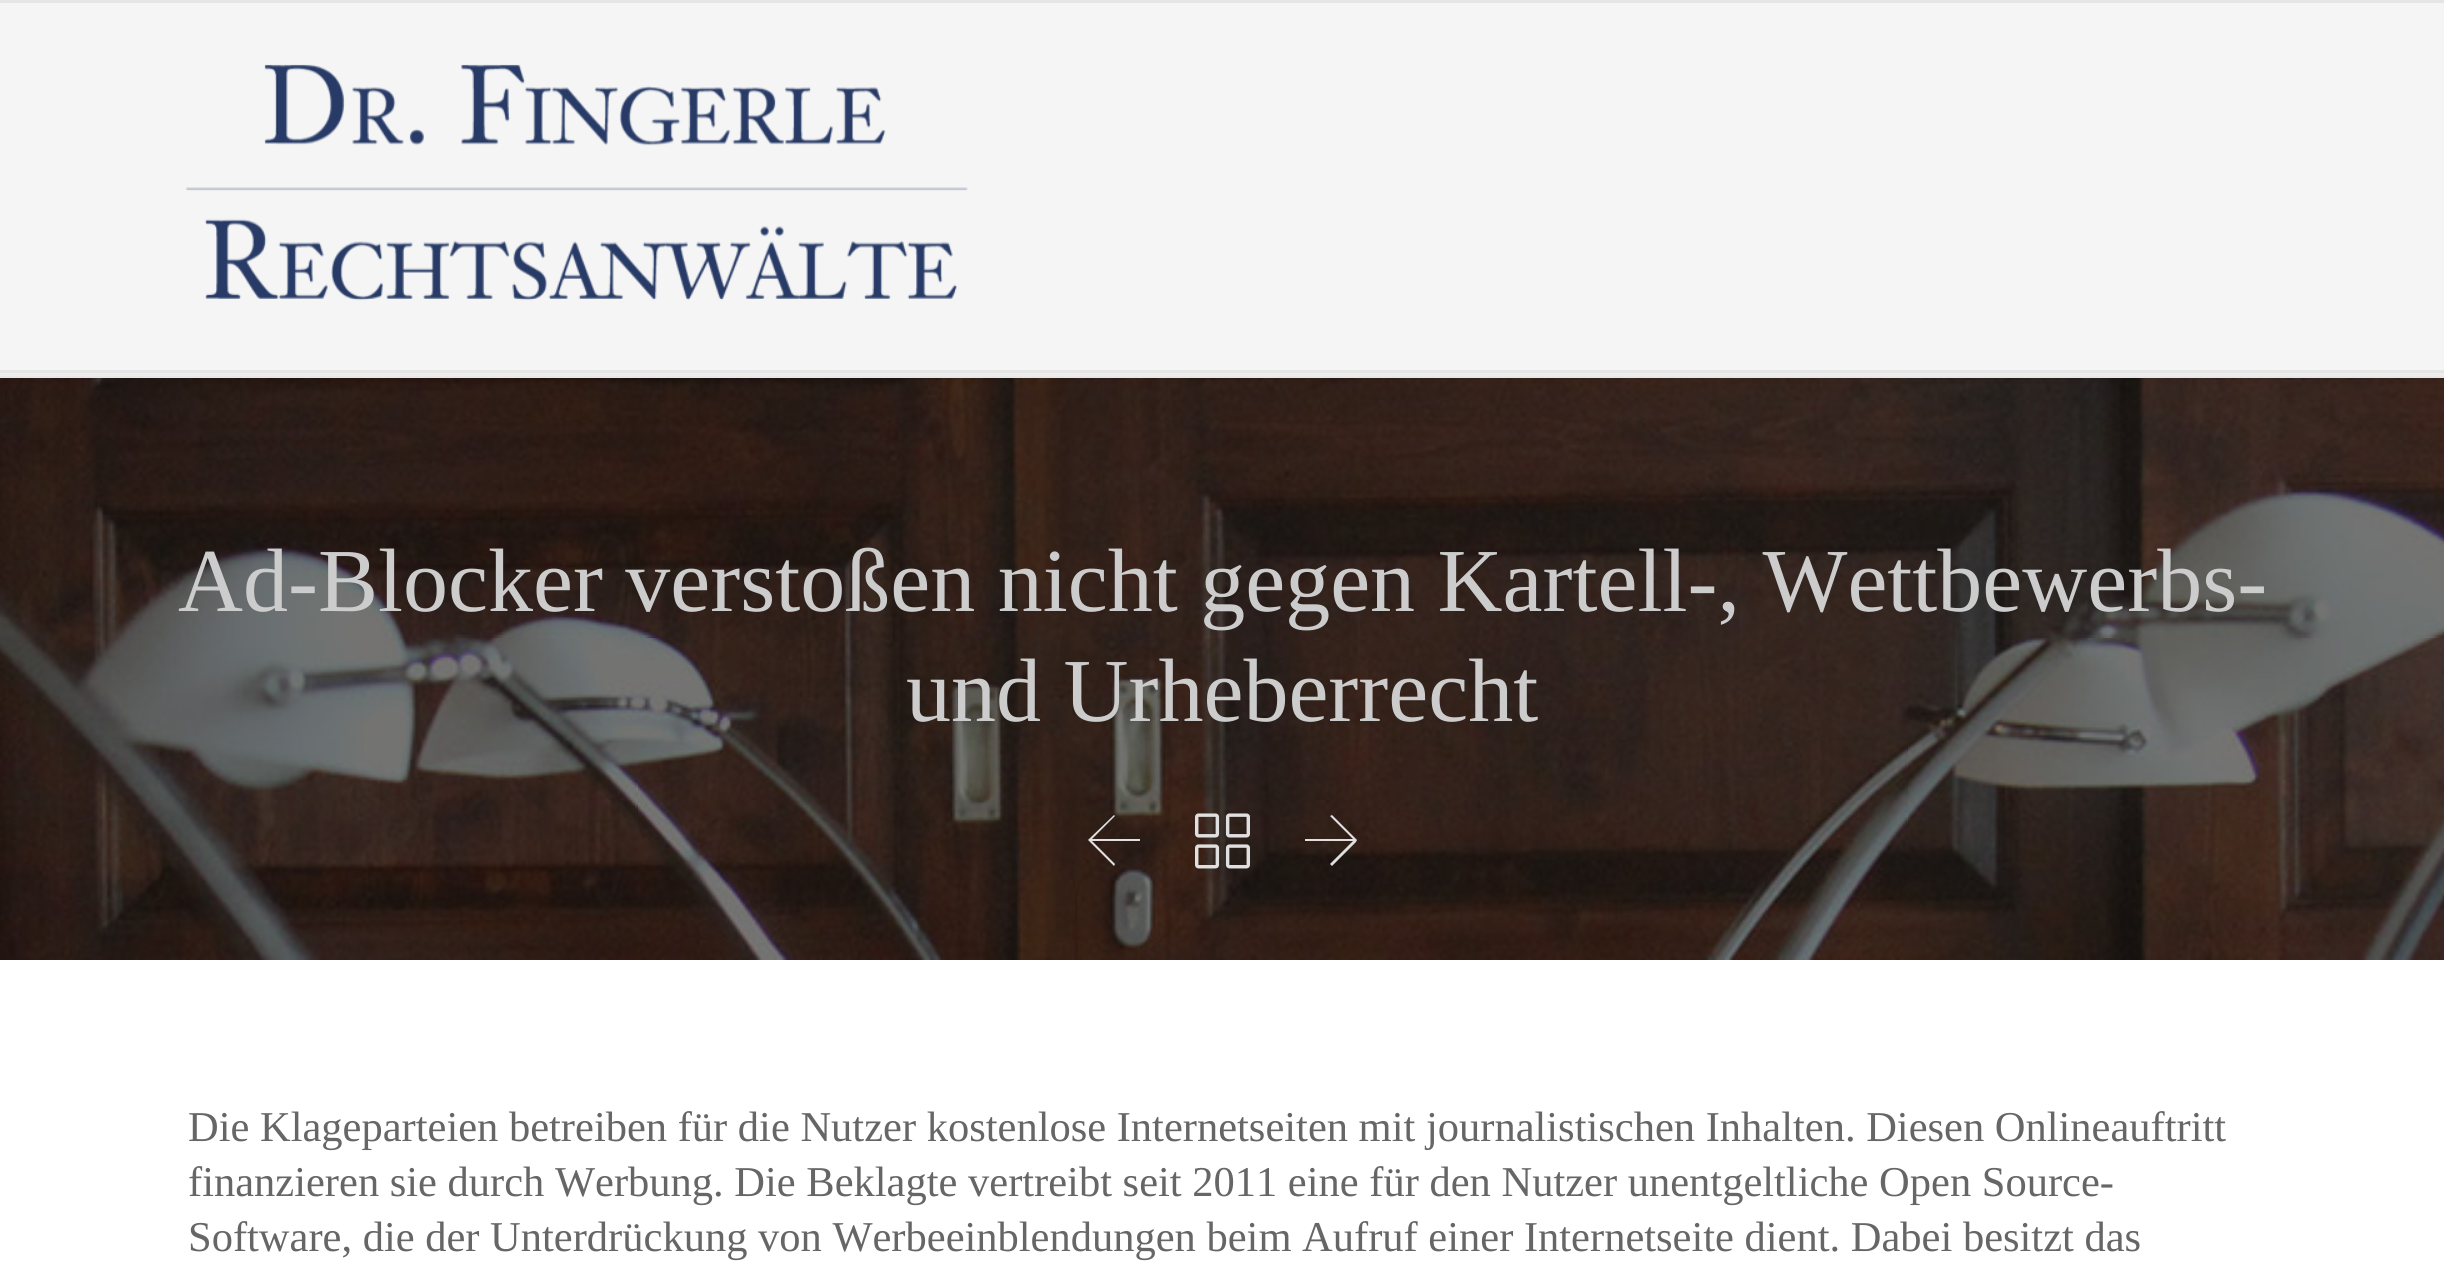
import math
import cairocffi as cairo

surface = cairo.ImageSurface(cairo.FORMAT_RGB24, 2444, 1287)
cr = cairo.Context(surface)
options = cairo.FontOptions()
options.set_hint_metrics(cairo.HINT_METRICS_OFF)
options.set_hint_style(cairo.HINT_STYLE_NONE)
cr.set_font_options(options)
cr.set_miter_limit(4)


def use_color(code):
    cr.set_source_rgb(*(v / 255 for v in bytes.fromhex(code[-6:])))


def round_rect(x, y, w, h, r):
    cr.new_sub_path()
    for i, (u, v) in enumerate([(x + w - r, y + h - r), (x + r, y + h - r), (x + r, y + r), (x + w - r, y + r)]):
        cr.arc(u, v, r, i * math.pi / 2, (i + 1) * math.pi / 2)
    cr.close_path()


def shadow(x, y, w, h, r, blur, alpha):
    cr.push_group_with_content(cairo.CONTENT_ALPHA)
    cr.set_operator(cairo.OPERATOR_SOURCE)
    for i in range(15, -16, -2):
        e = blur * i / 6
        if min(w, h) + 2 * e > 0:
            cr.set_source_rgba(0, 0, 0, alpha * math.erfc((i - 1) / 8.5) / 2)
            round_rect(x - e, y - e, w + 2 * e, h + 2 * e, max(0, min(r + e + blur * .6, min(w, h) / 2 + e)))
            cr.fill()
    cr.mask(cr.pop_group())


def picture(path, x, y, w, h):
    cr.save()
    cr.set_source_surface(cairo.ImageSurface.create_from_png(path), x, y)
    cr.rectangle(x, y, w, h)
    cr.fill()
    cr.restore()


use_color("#ffffff")
cr.paint()
picture("img2.png", 0, 378, 2444, 582)
use_color("#000000")
shadow(0, 5, 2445, 378, 0, 2.5, 0.04)
use_color("#e8e8e8")
cr.rectangle(0, 376, 2444, 2)
cr.fill()
use_color("#e5e5e5")
cr.rectangle(0, 0, 2444, 3)
cr.fill()
use_color("#f5f5f5")
cr.rectangle(0, 3, 2444, 367)
cr.fill()
use_color("#ededed")
cr.rectangle(0, 373, 2444, 3)
cr.fill()
use_color("#e5e5e5")
cr.rectangle(0, 370, 2444, 3)
cr.fill()
picture("img1.png", 186, 64, 782, 237)
cr.select_font_face("Liberation Serif")
cr.set_font_size(90)
use_color("#cccccc")
cr.move_to(178, 611)
cr.show_text("Ad-Blocker verstoßen nicht gegen Kartell-, Wettbewerbs-")
cr.move_to(906, 721)
cr.show_text("und Urheberrecht")
use_color("#e0e0e0")
cr.new_path()
cr.move_to(1089, 839)
cr.line_to(1114, 815)
cr.line_to(1115, 816)
cr.line_to(1092, 839)
cr.line_to(1140, 839)
cr.line_to(1140, 841)
cr.line_to(1092, 841)
cr.line_to(1115, 864)
cr.line_to(1114, 866)
cr.line_to(1088, 840)
cr.close_path()
cr.fill()
picture("img3.png", 1195, 813, 55, 56)
cr.new_path()
cr.move_to(1356, 842)
cr.line_to(1332, 866)
cr.line_to(1330, 864)
cr.line_to(1353, 841)
cr.line_to(1305, 841)
cr.line_to(1305, 839)
cr.line_to(1353, 839)
cr.line_to(1330, 816)
cr.line_to(1332, 815)
cr.line_to(1357, 840)
cr.close_path()
cr.fill()
cr.set_font_size(42.5)
use_color("#666666")
cr.move_to(188, 1141)
cr.show_text("Die Klageparteien betreiben für die Nutzer kostenlose Internetseiten mit journalistischen Inhalten. Diesen Onlineauftritt")
cr.move_to(188, 1196)
cr.show_text("finanzieren sie durch Werbung. Die Beklagte vertreibt seit 2011 eine für den Nutzer unentgeltliche Open Source-")
cr.move_to(188, 1251)
cr.show_text("Software, die der Unterdrückung von Werbeeinblendungen beim Aufruf einer Internetseite dient. Dabei besitzt das")
surface.write_to_png("result.png")
